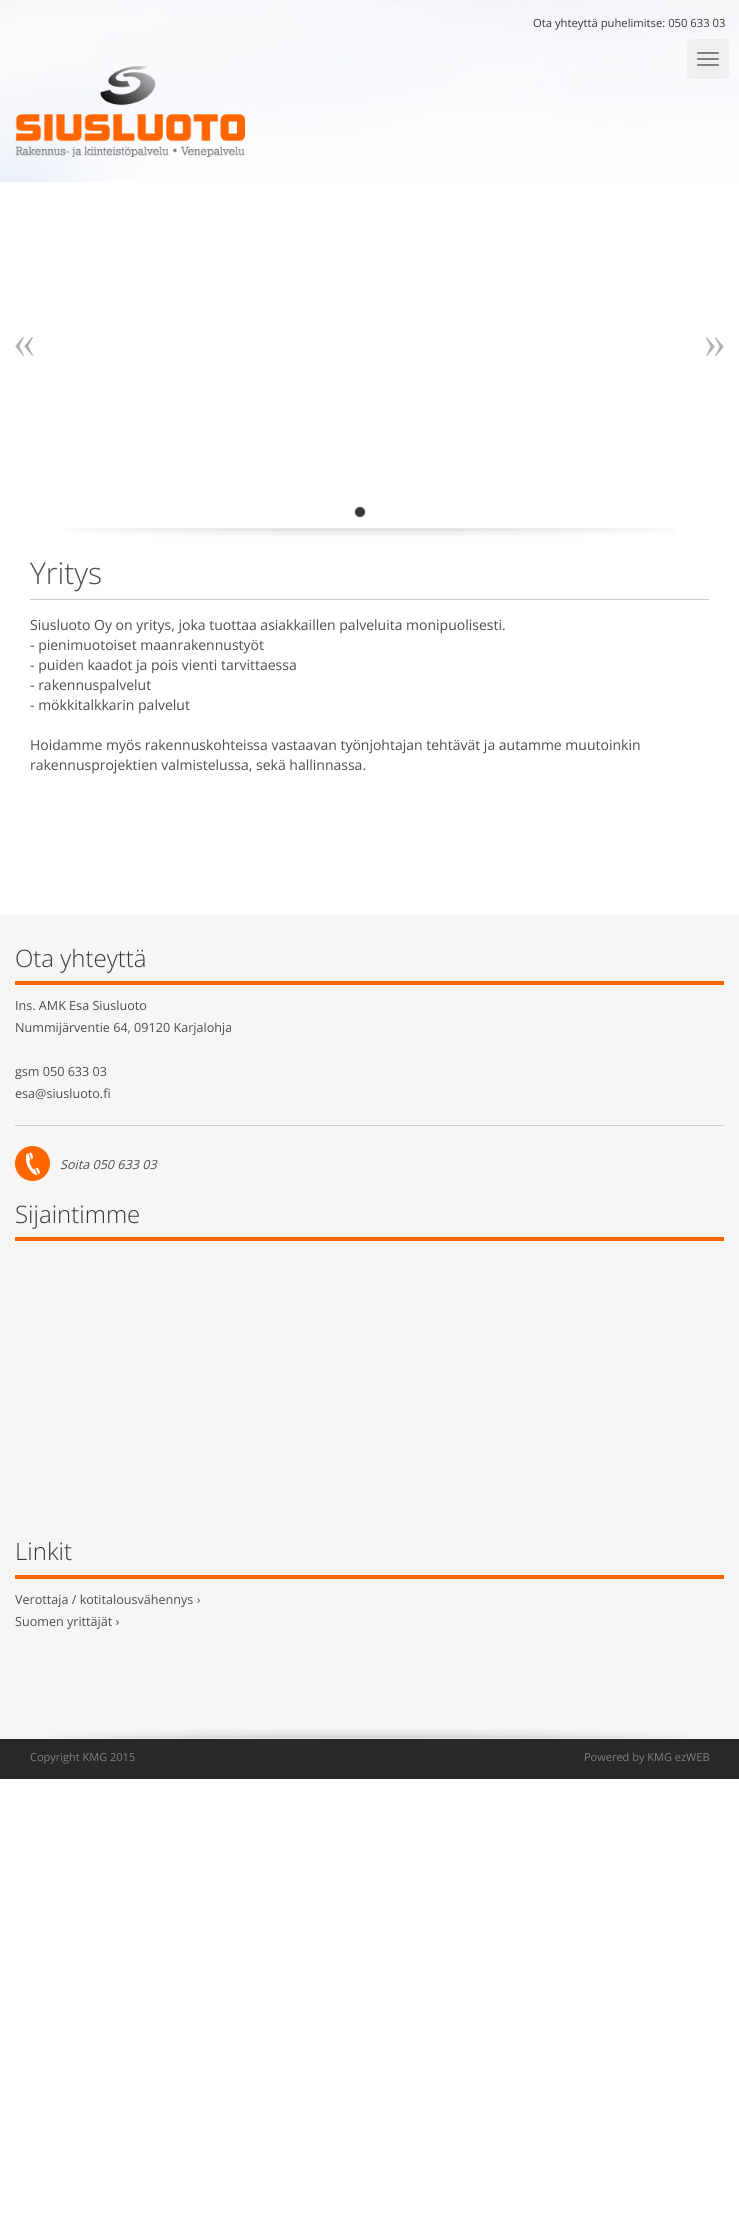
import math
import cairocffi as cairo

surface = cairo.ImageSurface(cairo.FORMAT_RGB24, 739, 2233)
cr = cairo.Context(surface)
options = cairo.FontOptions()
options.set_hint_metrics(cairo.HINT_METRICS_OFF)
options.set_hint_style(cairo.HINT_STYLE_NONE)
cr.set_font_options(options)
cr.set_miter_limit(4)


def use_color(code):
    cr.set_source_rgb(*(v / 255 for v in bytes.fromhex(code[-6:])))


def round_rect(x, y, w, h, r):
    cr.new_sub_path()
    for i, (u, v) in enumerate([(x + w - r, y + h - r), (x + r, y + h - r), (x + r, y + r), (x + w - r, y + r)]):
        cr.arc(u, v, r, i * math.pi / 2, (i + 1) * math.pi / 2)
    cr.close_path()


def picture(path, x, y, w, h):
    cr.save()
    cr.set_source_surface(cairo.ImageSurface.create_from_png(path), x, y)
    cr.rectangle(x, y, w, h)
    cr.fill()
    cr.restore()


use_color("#ffffff")
cr.paint()
picture("img1.png", 0, 0, 739, 182)
cr.select_font_face("Open Sans")
cr.set_font_size(11.25)
use_color("#383838")
cr.move_to(533, 27)
cr.show_text("Ota yhteyttä puhelimitse: 050 633 03")
use_color("#efefef")
round_rect(687, 39, 42, 40, 5)
cr.fill()
use_color("#808080")
round_rect(697, 52, 22, 2, 1)
cr.fill()
round_rect(697, 58, 22, 2, 1)
cr.fill()
round_rect(697, 64, 22, 2, 1)
cr.fill()
picture("img2.png", 15, 66, 230, 91)
picture("img3.png", 15, 337, 18, 19)
picture("img4.png", 706, 337, 18, 19)
use_color("#383838")
cr.arc(360, 512, 3.5, 0, 2 * math.pi)
cr.fill_preserve()
cr.set_line_width(3)
cr.stroke()
picture("img5.png", 64, 528, 611, 9)
use_color("#cccccc")
cr.rectangle(30, 599, 679, 1)
cr.fill()
cr.select_font_face("Open Sans Light")
cr.set_font_size(30)
use_color("#4d4d4d")
cr.move_to(30, 584)
cr.show_text("Yritys")
cr.select_font_face("Open Sans")
cr.set_font_size(14)
cr.move_to(30, 630)
cr.show_text("Siusluoto Oy on yritys, joka tuottaa asiakkaillen palveluita monipuolisesti.")
cr.move_to(30, 650)
cr.show_text("- pienimuotoiset maanrakennustyöt")
cr.move_to(30, 670)
cr.show_text("- puiden kaadot ja pois vienti tarvittaessa")
cr.move_to(30, 690)
cr.show_text("- rakennuspalvelut")
cr.move_to(30, 710)
cr.show_text("- mökkitalkkarin palvelut")
cr.move_to(30, 750)
cr.show_text("Hoidamme myös rakennuskohteissa vastaavan työnjohtajan tehtävät ja autamme muutoinkin")
cr.move_to(30, 770)
cr.show_text("rakennusprojektien valmistelussa, sekä hallinnassa.")
use_color("#f7f6f4")
cr.rectangle(0, 915, 739, 824)
cr.fill()
use_color("#ff6600")
cr.rectangle(15, 981, 709, 4)
cr.fill()
cr.select_font_face("Open Sans Light")
cr.set_font_size(24)
use_color("#383838")
cr.move_to(15, 967)
cr.show_text("Ota yhteyttä")
cr.select_font_face("Open Sans")
cr.set_font_size(12.6)
use_color("#4d4d4d")
cr.move_to(15, 1010)
cr.show_text("Ins. AMK Esa Siusluoto")
cr.move_to(15, 1032)
cr.show_text("Nummijärventie 64, 09120 Karjalohja")
cr.move_to(15, 1076)
cr.show_text("gsm 050 633 03")
cr.move_to(15, 1098)
cr.show_text("esa@siusluoto.fi")
use_color("#cccccc")
cr.rectangle(15, 1125, 709, 1)
cr.fill()
picture("img6.png", 15, 1146, 35, 35)
cr.select_font_face("Open Sans", cairo.FONT_SLANT_ITALIC)
use_color("#4d4d4d")
cr.move_to(60, 1169)
cr.show_text("Soita 050 633 03")
use_color("#ff6600")
cr.rectangle(15, 1237, 709, 4)
cr.fill()
cr.select_font_face("Open Sans Light")
cr.set_font_size(24)
use_color("#383838")
cr.move_to(15, 1223)
cr.show_text("Sijaintimme")
use_color("#ff6600")
cr.rectangle(15, 1575, 709, 4)
cr.fill()
use_color("#383838")
cr.move_to(15, 1560)
cr.show_text("Linkit")
cr.select_font_face("Open Sans")
cr.set_font_size(12.6)
use_color("#4d4d4d")
cr.move_to(15, 1604)
cr.show_text("Verottaja / kotitalousvähennys ›")
cr.move_to(15, 1626)
cr.show_text("Suomen yrittäjät ›")
picture("img7.png", 47, 1729, 645, 10)
use_color("#282828")
cr.rectangle(0, 1739, 739, 40)
cr.fill()
cr.set_font_size(11)
use_color("#808080")
cr.move_to(30, 1761)
cr.show_text("Copyright KMG 2015")
cr.move_to(584, 1761)
cr.show_text("Powered by KMG ezWEB")
surface.write_to_png("result.png")
